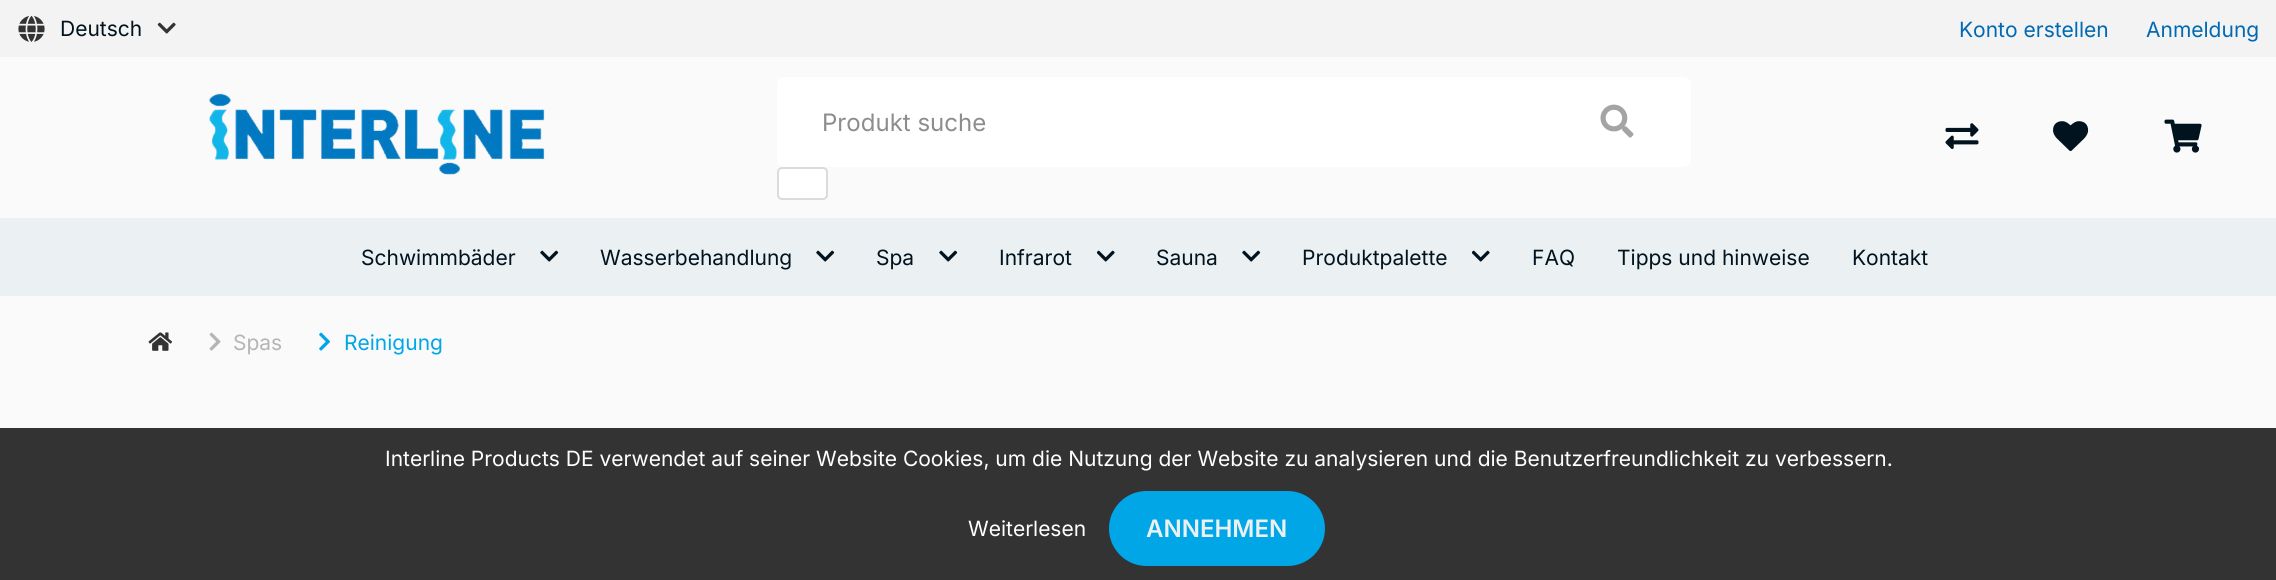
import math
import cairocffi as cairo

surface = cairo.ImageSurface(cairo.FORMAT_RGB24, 2276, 580)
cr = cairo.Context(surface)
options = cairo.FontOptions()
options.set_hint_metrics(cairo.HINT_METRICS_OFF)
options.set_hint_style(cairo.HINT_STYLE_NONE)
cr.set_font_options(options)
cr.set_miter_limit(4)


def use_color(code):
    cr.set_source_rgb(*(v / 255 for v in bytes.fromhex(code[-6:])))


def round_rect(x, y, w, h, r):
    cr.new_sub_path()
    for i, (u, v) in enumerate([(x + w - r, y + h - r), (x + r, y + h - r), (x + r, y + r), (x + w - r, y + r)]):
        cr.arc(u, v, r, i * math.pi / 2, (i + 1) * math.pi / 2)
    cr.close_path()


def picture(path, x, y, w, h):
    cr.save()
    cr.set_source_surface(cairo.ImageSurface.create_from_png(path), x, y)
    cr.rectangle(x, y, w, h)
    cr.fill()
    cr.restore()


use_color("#fafafa")
cr.paint()
use_color("#f3f3f3")
cr.rectangle(0, 0, 2276, 57)
cr.fill()
picture("img1.png", 18, 15, 27, 27)
cr.select_font_face("Inter")
cr.set_font_size(21)
use_color("#00131e")
cr.move_to(60, 36)
cr.show_text("Deutsch")
picture("img2.png", 157, 22, 19, 12)
use_color("#0069b3")
cr.move_to(1959, 37)
cr.show_text("Konto erstellen")
cr.move_to(2146, 37)
cr.show_text("Anmeldung")
picture("img3.png", 209, 93, 336, 82)
use_color("#ffffff")
round_rect(777, 77, 914, 90, 8)
cr.fill()
cr.set_font_size(24)
use_color("#8d8d8d")
cr.move_to(822, 131)
cr.show_text("Produkt suche")
use_color("#ffffff")
round_rect(778, 168, 49, 31, 4)
cr.fill_preserve()
use_color("#dbdbdb")
cr.stroke()
picture("img4.png", 1600, 104, 34, 34)
picture("img5.png", 1945, 123, 34, 26)
picture("img6.png", 2053, 121, 36, 31)
picture("img7.png", 2164, 119, 38, 34)
use_color("#ebf0f3")
cr.rectangle(0, 218, 2276, 78)
cr.fill()
cr.set_font_size(21)
use_color("#00131e")
cr.move_to(361, 265)
cr.show_text("Schwimmbäder")
picture("img8.png", 540, 250, 19, 12)
cr.move_to(600, 265)
cr.show_text("Wasserbehandlung")
picture("img8.png", 816, 250, 19, 12)
cr.move_to(876, 265)
cr.show_text("Spa")
picture("img8.png", 939, 250, 19, 12)
cr.move_to(999, 265)
cr.show_text("Infrarot")
picture("img9.png", 1097, 250, 18, 12)
cr.move_to(1156, 265)
cr.show_text("Sauna")
picture("img8.png", 1242, 250, 19, 12)
cr.move_to(1302, 265)
cr.show_text("Produktpalette")
picture("img9.png", 1472, 250, 18, 12)
cr.move_to(1532, 265)
cr.show_text("FAQ")
cr.move_to(1617, 265)
cr.show_text("Tipps und hinweise")
cr.move_to(1852, 265)
cr.show_text("Kontakt")
picture("img10.png", 148, 332, 25, 19)
picture("img11.png", 209, 332, 12, 19)
use_color("#b5b5b5")
cr.move_to(233, 350)
cr.show_text("Spas")
picture("img12.png", 319, 332, 11, 19)
use_color("#00a6e6")
cr.move_to(344, 350)
cr.show_text("Reinigung")
use_color("#333333")
cr.rectangle(0, 428, 2276, 152)
cr.fill()
use_color("#ffffff")
cr.move_to(385, 466)
cr.show_text("Interline Products DE verwendet auf seiner Website Cookies, um die Nutzung der Website zu analysieren und die Benutzerfreundlichkeit zu verbessern.")
cr.move_to(968, 536)
cr.show_text("Weiterlesen")
use_color("#00a6e6")
round_rect(1109, 491, 216, 75, 37.5)
cr.fill()
cr.select_font_face("Inter SemiBold")
cr.set_font_size(24)
use_color("#ebf0f3")
cr.move_to(1146, 537)
cr.show_text("ANNEHMEN")
surface.write_to_png("result.png")
